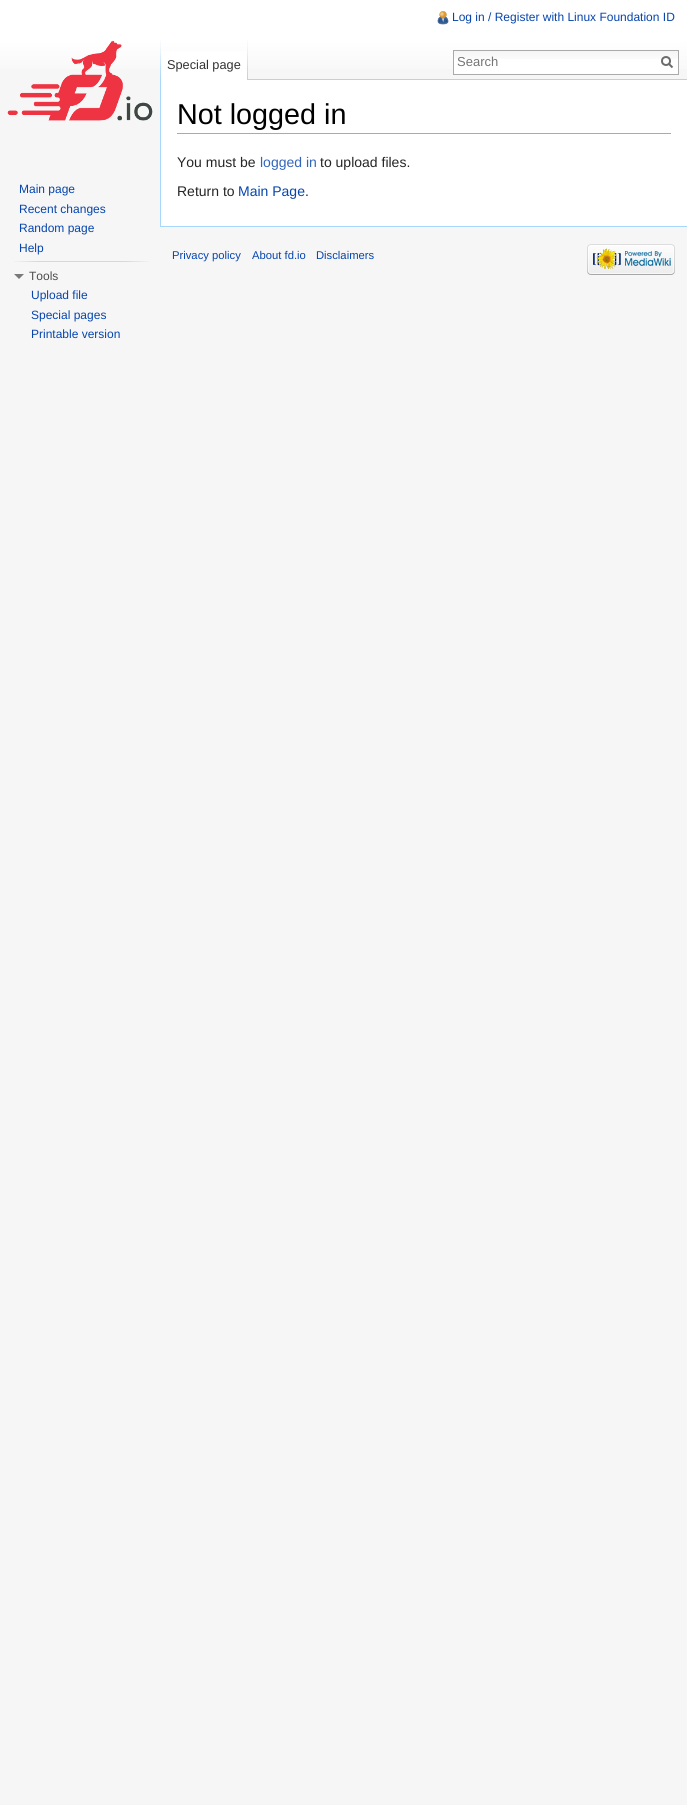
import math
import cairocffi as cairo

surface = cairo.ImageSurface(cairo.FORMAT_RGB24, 687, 1805)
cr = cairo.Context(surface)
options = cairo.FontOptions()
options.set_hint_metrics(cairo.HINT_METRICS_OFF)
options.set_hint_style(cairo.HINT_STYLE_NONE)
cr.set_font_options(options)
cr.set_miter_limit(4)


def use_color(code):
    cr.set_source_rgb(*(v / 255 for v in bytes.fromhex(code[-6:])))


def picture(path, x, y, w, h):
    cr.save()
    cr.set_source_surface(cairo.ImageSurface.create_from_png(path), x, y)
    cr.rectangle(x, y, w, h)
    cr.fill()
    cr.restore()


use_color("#f6f6f6")
cr.paint()
gradient = cairo.LinearGradient(344, 0, 344, 80)
gradient.add_color_stop_rgba(0.5, 1, 1, 1, 1)
gradient.add_color_stop_rgba(1, 0.965, 0.965, 0.965, 1)
cr.set_source(gradient)
cr.rectangle(0, 0, 687, 69)
cr.fill()
picture("img1.png", 437, 11, 12, 14)
cr.select_font_face("Liberation Sans")
cr.set_font_size(12)
use_color("#0645ad")
cr.move_to(452, 21)
cr.show_text("Log in / Register with Linux Foundation ID")
picture("img2.png", 160, 40, 1, 39)
use_color("#ffffff")
cr.rectangle(161, 51, 86, 29)
cr.fill()
picture("img3.png", 247, 40, 1, 40)
cr.set_font_size(12.75)
use_color("#333333")
cr.move_to(167, 69)
cr.show_text("Special page")
use_color("#ffffff")
cr.rectangle(454, 59, 224, 15)
cr.fill()
picture("img4.png", 454, 51, 224, 8)
cr.rectangle(453.5, 50.5, 225, 24)
use_color("#aaaaaa")
cr.set_line_width(1)
cr.stroke()
cr.set_font_size(13)
use_color("#757575")
cr.move_to(457, 66)
cr.show_text("Search")
cr.new_path()
cr.move_to(672.5, 67.5)
cr.line_to(668.5, 63.5)
use_color("#6c6c6c")
cr.set_line_width(2)
cr.stroke()
cr.arc(666, 61, 4, 0, 2 * math.pi)
cr.stroke()
picture("img5.png", 7, 40, 146, 81)
cr.set_font_size(12)
use_color("#0645ad")
cr.move_to(19, 193)
cr.show_text("Main page")
cr.move_to(19, 213)
cr.show_text("Recent changes")
cr.move_to(19, 232)
cr.show_text("Random page")
cr.move_to(19, 252)
cr.show_text("Help")
picture("img6.png", 14, 261, 135, 1)
use_color("#797979")
cr.new_path()
cr.move_to(24, 274)
cr.line_to(19, 279)
cr.line_to(14, 274)
cr.close_path()
cr.fill()
use_color("#4d4d4d")
cr.move_to(29, 280)
cr.show_text("Tools")
use_color("#0645ad")
cr.move_to(31, 299)
cr.show_text("Upload file")
cr.move_to(31, 319)
cr.show_text("Special pages")
cr.move_to(31, 338)
cr.show_text("Printable version")
use_color("#ffffff")
cr.rectangle(161, 80, 526, 146)
cr.fill()
use_color("#a7d7f9")
cr.rectangle(248, 79, 439, 1)
cr.fill()
cr.rectangle(160, 226, 527, 1)
cr.fill()
cr.rectangle(160, 79, 1, 148)
cr.fill()
use_color("#aaaaaa")
cr.rectangle(177, 133, 494, 1)
cr.fill()
cr.set_font_size(28.75)
use_color("#000000")
cr.move_to(177, 124)
cr.show_text("Not logged in")
cr.set_font_size(14)
use_color("#252525")
cr.move_to(177, 167)
cr.show_text("You must be")
use_color("#3366bb")
cr.move_to(260, 167)
cr.show_text("logged in")
use_color("#252525")
cr.move_to(320, 167)
cr.show_text("to upload files.")
cr.move_to(177, 196)
cr.show_text("Return to")
use_color("#0645ad")
cr.move_to(238, 196)
cr.show_text("Main Page")
use_color("#252525")
cr.move_to(305, 196)
cr.show_text(".")
cr.set_font_size(11.25)
use_color("#0645ad")
cr.move_to(172, 259)
cr.show_text("Privacy policy")
cr.move_to(252, 259)
cr.show_text("About fd.io")
cr.move_to(316, 259)
cr.show_text("Disclaimers")
picture("img7.png", 587, 244, 88, 31)
surface.write_to_png("result.png")
